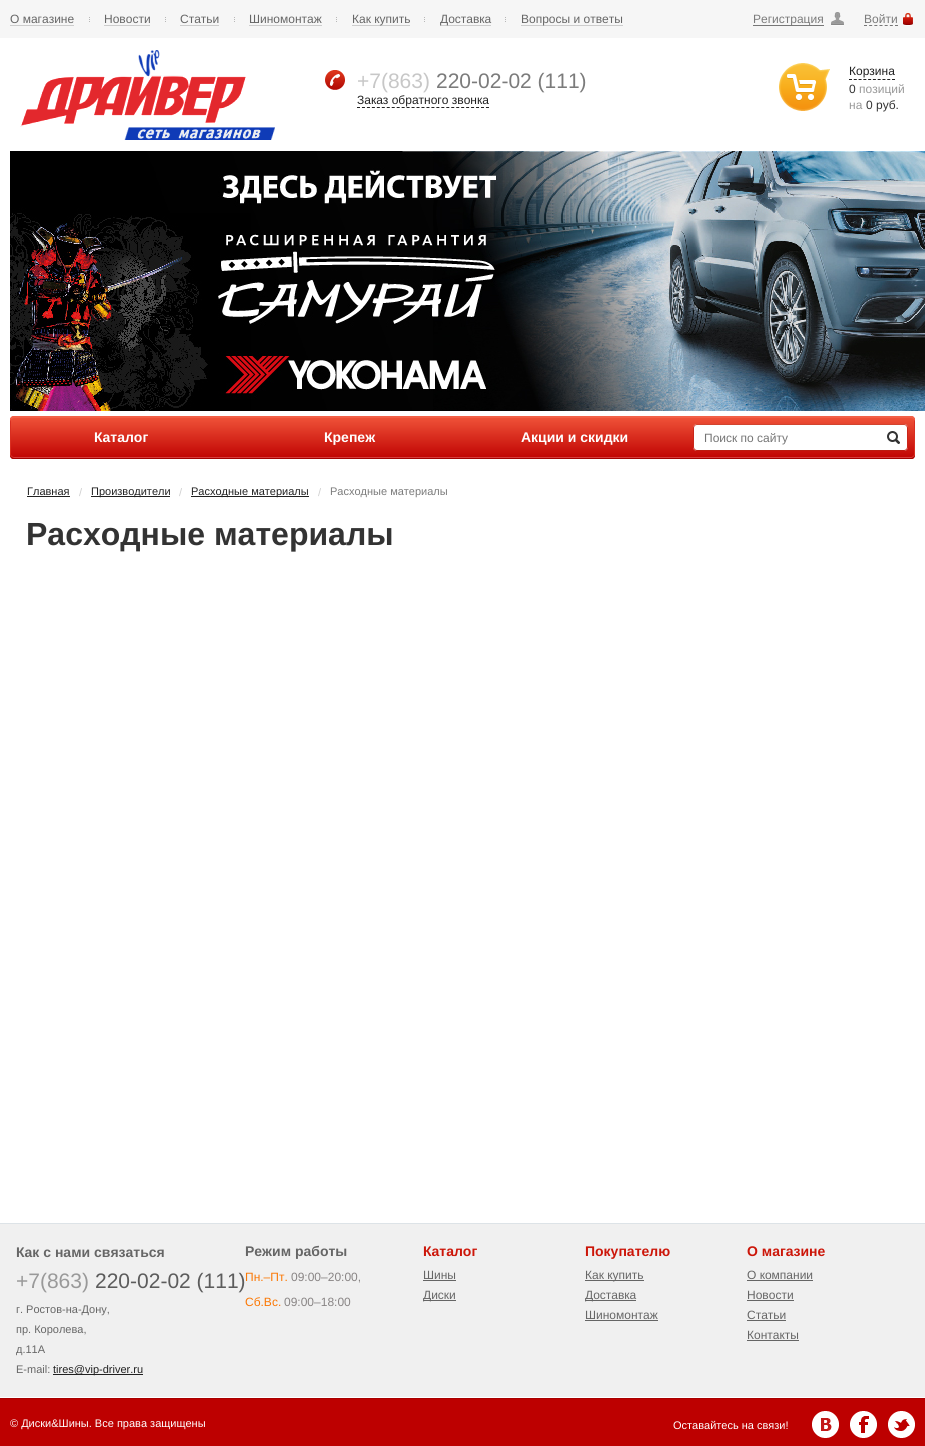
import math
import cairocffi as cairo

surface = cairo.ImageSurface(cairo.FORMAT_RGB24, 925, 1446)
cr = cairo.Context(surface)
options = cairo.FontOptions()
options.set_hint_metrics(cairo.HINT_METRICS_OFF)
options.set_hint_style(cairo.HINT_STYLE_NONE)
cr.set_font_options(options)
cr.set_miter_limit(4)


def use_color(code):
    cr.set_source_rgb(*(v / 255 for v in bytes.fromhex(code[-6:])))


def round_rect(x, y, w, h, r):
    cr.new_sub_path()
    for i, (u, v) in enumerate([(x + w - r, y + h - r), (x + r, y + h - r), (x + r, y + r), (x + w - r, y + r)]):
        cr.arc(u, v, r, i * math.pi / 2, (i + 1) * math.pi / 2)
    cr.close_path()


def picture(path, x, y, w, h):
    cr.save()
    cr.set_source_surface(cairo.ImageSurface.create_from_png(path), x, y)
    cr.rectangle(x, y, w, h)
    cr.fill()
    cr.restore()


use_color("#ffffff")
cr.paint()
use_color("#f6f6f6")
cr.rectangle(0, 0, 925, 38)
cr.fill()
use_color("#cdcdcd")
cr.rectangle(10, 25, 64, 1)
cr.fill()
cr.select_font_face("Liberation Sans")
cr.set_font_size(12)
use_color("#666666")
cr.move_to(10, 23)
cr.show_text("О магазине")
cr.new_path()
cr.move_to(89.5, 17)
cr.line_to(89.5, 18)
cr.move_to(89.5, 19)
cr.line_to(89.5, 20)
cr.move_to(89.5, 21)
cr.line_to(89.5, 22)
use_color("#b8b8b8")
cr.set_line_width(1)
cr.stroke()
use_color("#cdcdcd")
cr.rectangle(104, 25, 46, 1)
cr.fill()
use_color("#666666")
cr.move_to(104, 23)
cr.show_text("Новости")
cr.new_path()
cr.move_to(165.5, 17)
cr.line_to(165.5, 18)
cr.move_to(165.5, 19)
cr.line_to(165.5, 20)
cr.move_to(165.5, 21)
cr.line_to(165.5, 22)
use_color("#b8b8b8")
cr.stroke()
use_color("#cdcdcd")
cr.rectangle(180, 25, 39, 1)
cr.fill()
use_color("#666666")
cr.move_to(180, 23)
cr.show_text("Статьи")
cr.new_path()
cr.move_to(234.5, 17)
cr.line_to(234.5, 18)
cr.move_to(234.5, 19)
cr.line_to(234.5, 20)
cr.move_to(234.5, 21)
cr.line_to(234.5, 22)
use_color("#b8b8b8")
cr.stroke()
use_color("#cdcdcd")
cr.rectangle(249, 25, 73, 1)
cr.fill()
use_color("#666666")
cr.move_to(249, 23)
cr.show_text("Шиномонтаж")
cr.new_path()
cr.move_to(336.5, 17)
cr.line_to(336.5, 18)
cr.move_to(336.5, 19)
cr.line_to(336.5, 20)
cr.move_to(336.5, 21)
cr.line_to(336.5, 22)
use_color("#b8b8b8")
cr.stroke()
use_color("#cdcdcd")
cr.rectangle(352, 25, 58, 1)
cr.fill()
use_color("#666666")
cr.move_to(352, 23)
cr.show_text("Как купить")
cr.new_path()
cr.move_to(424.5, 17)
cr.line_to(424.5, 18)
cr.move_to(424.5, 19)
cr.line_to(424.5, 20)
cr.move_to(424.5, 21)
cr.line_to(424.5, 22)
use_color("#b8b8b8")
cr.stroke()
use_color("#cdcdcd")
cr.rectangle(440, 25, 51, 1)
cr.fill()
use_color("#666666")
cr.move_to(440, 23)
cr.show_text("Доставка")
cr.new_path()
cr.move_to(505.5, 17)
cr.line_to(505.5, 18)
cr.move_to(505.5, 19)
cr.line_to(505.5, 20)
cr.move_to(505.5, 21)
cr.line_to(505.5, 22)
use_color("#b8b8b8")
cr.stroke()
use_color("#cdcdcd")
cr.rectangle(521, 25, 102, 1)
cr.fill()
use_color("#666666")
cr.move_to(521, 23)
cr.show_text("Вопросы и ответы")
picture("img1.png", 831, 12, 13, 14)
use_color("#777777")
cr.rectangle(753, 25, 71, 1)
cr.fill()
use_color("#7b7b7b")
cr.move_to(753, 23)
cr.show_text("Регистрация")
picture("img2.png", 903, 12, 10, 14)
cr.new_path()
cr.move_to(864, 25.5)
cr.line_to(898, 25.5)
use_color("#777777")
cr.set_dash([3, 2.17])
cr.stroke()
use_color("#7b7b7b")
cr.move_to(864, 23)
cr.show_text("Войти")
picture("img3.png", 20, 50, 255, 90)
picture("img4.png", 325, 70, 20, 20)
cr.set_font_size(21)
use_color("#c7c7c7")
cr.move_to(357, 88)
cr.show_text("+7(863)")
use_color("#7b7b7b")
cr.move_to(436, 88)
cr.show_text("220-02-02 (111)")
cr.new_path()
cr.move_to(357, 107.5)
cr.line_to(489, 107.5)
use_color("#212121")
cr.set_dash([3, 1.96])
cr.stroke()
cr.set_font_size(12)
cr.move_to(357, 104)
cr.show_text("Заказ обратного звонка")
picture("img5.png", 779, 63, 51, 48)
cr.new_path()
cr.move_to(849, 79.5)
cr.line_to(895, 79.5)
cr.set_dash([3, 1.78])
cr.stroke()
cr.move_to(849, 75)
cr.show_text("Корзина")
use_color("#333333")
cr.move_to(849, 93)
cr.show_text("0")
use_color("#999999")
cr.move_to(859, 93)
cr.show_text("позиций")
cr.move_to(849, 109)
cr.show_text("на")
use_color("#333333")
cr.move_to(866, 109)
cr.show_text("0 руб.")
picture("img6.png", 10, 151, 915, 260)
gradient = cairo.LinearGradient(463, 416, 463, 459)
gradient.add_color_stop_rgba(0, 0.945, 0.333, 0.227, 1)
gradient.add_color_stop_rgba(1, 0.749, 0.008, 0.004, 1)
cr.set_source(gradient)
round_rect(10, 416, 905, 43, 4)
cr.fill()
use_color("#d63e3e")
cr.new_path()
cr.move_to(10, 453)
cr.curve_to(10, 456, 10, 459, 14, 459)
cr.line_to(911, 459)
cr.curve_to(915, 459, 915, 456, 915, 453)
cr.curve_to(915, 455, 913, 457, 911, 457)
cr.line_to(14, 457)
cr.curve_to(12, 457, 10, 455, 10, 453)
cr.close_path()
cr.fill()
use_color("#d92e20")
cr.new_path()
cr.move_to(11, 457)
cr.curve_to(11, 458, 13, 459, 14, 459)
cr.line_to(911, 459)
cr.curve_to(913, 459, 915, 457, 915, 455)
cr.line_to(915, 420)
cr.curve_to(915, 419, 914, 417, 913, 417)
cr.line_to(914, 419)
cr.line_to(914, 454)
cr.curve_to(914, 456, 912, 458, 910, 458)
cr.line_to(13, 458)
cr.close_path()
cr.fill()
cr.new_path()
cr.move_to(12, 417)
cr.curve_to(11, 417, 10, 419, 10, 420)
cr.line_to(10, 455)
cr.curve_to(10, 457, 12, 459, 14, 459)
cr.line_to(911, 459)
cr.curve_to(912, 459, 914, 458, 914, 457)
cr.line_to(912, 458)
cr.line_to(15, 458)
cr.curve_to(13, 458, 11, 456, 11, 454)
cr.line_to(11, 419)
cr.close_path()
cr.fill()
use_color("#f26047")
cr.new_path()
cr.move_to(14, 418)
cr.line_to(911, 418)
cr.curve_to(913, 418, 915, 420, 915, 422)
cr.curve_to(915, 419, 915, 416, 911, 416)
cr.line_to(14, 416)
cr.curve_to(10, 416, 10, 419, 10, 422)
cr.curve_to(10, 420, 12, 418, 14, 418)
cr.close_path()
cr.fill()
use_color("#a20101")
cr.new_path()
cr.move_to(10, 454)
cr.curve_to(10, 457, 11, 459, 14, 459)
cr.line_to(911, 459)
cr.curve_to(914, 459, 915, 457, 915, 454)
cr.curve_to(915, 456, 913, 458, 911, 458)
cr.line_to(14, 458)
cr.curve_to(12, 458, 10, 456, 10, 454)
cr.close_path()
cr.fill()
cr.select_font_face("Liberation Sans", cairo.FONT_SLANT_NORMAL, cairo.FONT_WEIGHT_BOLD)
cr.set_font_size(14)
use_color("#ffffff")
cr.move_to(94, 442)
cr.show_text("Каталог")
cr.move_to(324, 442)
cr.show_text("Крепеж")
cr.move_to(521, 442)
cr.show_text("Акции и скидки")
round_rect(693, 424, 215, 27, 4)
cr.fill()
cr.new_path()
cr.move_to(694.5, 425.5)
cr.curve_to(695, 425, 696, 424.5, 697, 424.5)
cr.line_to(904, 424.5)
cr.curve_to(905, 424.5, 906, 425, 906.5, 425.5)
use_color("#d2452f")
cr.set_dash([])
cr.stroke()
cr.new_path()
cr.move_to(906.5, 425.5)
cr.curve_to(907, 426, 907.5, 427, 907.5, 428)
cr.line_to(907.5, 447)
cr.curve_to(907.5, 448, 907, 449, 906.5, 449.5)
use_color("#c9261a")
cr.stroke()
cr.new_path()
cr.move_to(906.5, 449.5)
cr.curve_to(906, 450, 905, 450.5, 904, 450.5)
cr.line_to(697, 450.5)
cr.curve_to(696, 450.5, 695, 450, 694.5, 449.5)
use_color("#bb1c11")
cr.stroke()
cr.new_path()
cr.move_to(694.5, 449.5)
cr.curve_to(694, 449, 693.5, 448, 693.5, 447)
cr.line_to(693.5, 428)
cr.curve_to(693.5, 427, 694, 426, 694.5, 425.5)
use_color("#c9261a")
cr.stroke()
cr.select_font_face("Liberation Sans")
cr.set_font_size(12)
use_color("#757575")
cr.move_to(704, 442)
cr.show_text("Поиск по сайту")
picture("img7.png", 887, 431, 13, 13)
cr.set_font_size(11)
use_color("#212121")
cr.move_to(27, 495)
cr.show_text("Главная")
cr.rectangle(27, 496, 43, 1)
cr.fill()
use_color("#cfcfcf")
cr.move_to(79, 496)
cr.show_text("/")
use_color("#212121")
cr.rectangle(91, 496, 79, 1)
cr.fill()
cr.move_to(91, 495)
cr.show_text("Производители")
use_color("#cfcfcf")
cr.move_to(179, 496)
cr.show_text("/")
use_color("#212121")
cr.rectangle(191, 496, 118, 1)
cr.fill()
cr.move_to(191, 495)
cr.show_text("Расходные материалы")
use_color("#cfcfcf")
cr.move_to(318, 496)
cr.show_text("/")
use_color("#7b7b7b")
cr.move_to(330, 495)
cr.show_text("Расходные материалы")
cr.select_font_face("Liberation Sans", cairo.FONT_SLANT_NORMAL, cairo.FONT_WEIGHT_BOLD)
cr.set_font_size(32)
use_color("#333333")
cr.move_to(26, 545)
cr.show_text("Расходные материалы")
use_color("#f0f0f0")
cr.rectangle(0, 1224, 925, 173)
cr.fill()
use_color("#dde3e7")
cr.rectangle(0, 1223, 925, 1)
cr.fill()
cr.set_font_size(14)
use_color("#666666")
cr.move_to(16, 1257)
cr.show_text("Как с нами связаться")
cr.select_font_face("Liberation Sans")
cr.set_font_size(21)
use_color("#999999")
cr.move_to(16, 1288)
cr.show_text("+7(863)")
use_color("#5c5c5c")
cr.move_to(95, 1288)
cr.show_text("220-02-02 (111)")
cr.set_font_size(11)
use_color("#666666")
cr.move_to(16, 1313)
cr.show_text("г. Ростов-на-Дону,")
cr.move_to(16, 1333)
cr.show_text("пр. Королева,")
cr.move_to(16, 1353)
cr.show_text("д.11А")
cr.move_to(16, 1373)
cr.show_text("E-mail:")
use_color("#212121")
cr.rectangle(53, 1374, 90, 1)
cr.fill()
cr.move_to(53, 1373)
cr.show_text("tires@vip-driver.ru")
cr.select_font_face("Liberation Sans", cairo.FONT_SLANT_NORMAL, cairo.FONT_WEIGHT_BOLD)
cr.set_font_size(14)
use_color("#666666")
cr.move_to(245, 1256)
cr.show_text("Режим работы")
cr.select_font_face("Liberation Sans")
cr.set_font_size(12)
use_color("#fb7703")
cr.move_to(245, 1281)
cr.show_text("Пн.–Пт.")
use_color("#888484")
cr.move_to(291, 1281)
cr.show_text("09:00–20:00,")
use_color("#fb7703")
cr.move_to(245, 1306)
cr.show_text("Сб.Вс.")
use_color("#888484")
cr.move_to(284, 1306)
cr.show_text("09:00–18:00")
cr.select_font_face("Liberation Sans", cairo.FONT_SLANT_NORMAL, cairo.FONT_WEIGHT_BOLD)
cr.set_font_size(14)
use_color("#cc1609")
cr.move_to(423, 1256)
cr.show_text("Каталог")
cr.select_font_face("Liberation Sans")
cr.set_font_size(12)
use_color("#666666")
cr.move_to(423, 1279)
cr.show_text("Шины")
use_color("#656565")
cr.rectangle(423, 1280, 33, 1)
cr.fill()
cr.rectangle(423, 1300, 33, 1)
cr.fill()
use_color("#666666")
cr.move_to(423, 1299)
cr.show_text("Диски")
cr.select_font_face("Liberation Sans", cairo.FONT_SLANT_NORMAL, cairo.FONT_WEIGHT_BOLD)
cr.set_font_size(14)
use_color("#cc1609")
cr.move_to(585, 1256)
cr.show_text("Покупателю")
use_color("#656565")
cr.rectangle(585, 1280, 59, 1)
cr.fill()
cr.select_font_face("Liberation Sans")
cr.set_font_size(12)
use_color("#666666")
cr.move_to(585, 1279)
cr.show_text("Как купить")
use_color("#656565")
cr.rectangle(585, 1300, 51, 1)
cr.fill()
use_color("#666666")
cr.move_to(585, 1299)
cr.show_text("Доставка")
cr.move_to(585, 1319)
cr.show_text("Шиномонтаж")
use_color("#656565")
cr.rectangle(585, 1320, 73, 1)
cr.fill()
cr.select_font_face("Liberation Sans", cairo.FONT_SLANT_NORMAL, cairo.FONT_WEIGHT_BOLD)
cr.set_font_size(14)
use_color("#cc1609")
cr.move_to(747, 1256)
cr.show_text("О магазине")
cr.select_font_face("Liberation Sans")
cr.set_font_size(12)
use_color("#666666")
cr.move_to(747, 1279)
cr.show_text("О компании")
use_color("#656565")
cr.rectangle(747, 1280, 66, 1)
cr.fill()
use_color("#666666")
cr.move_to(747, 1299)
cr.show_text("Новости")
use_color("#656565")
cr.rectangle(747, 1300, 47, 1)
cr.fill()
use_color("#666666")
cr.move_to(747, 1319)
cr.show_text("Статьи")
use_color("#656565")
cr.rectangle(747, 1320, 39, 1)
cr.fill()
use_color("#666666")
cr.move_to(747, 1339)
cr.show_text("Контакты")
use_color("#656565")
cr.rectangle(747, 1340, 52, 1)
cr.fill()
use_color("#bd0000")
cr.rectangle(0, 1399, 925, 47)
cr.fill()
use_color("#a80000")
cr.rectangle(0, 1398, 925, 1)
cr.fill()
cr.set_font_size(11)
use_color("#ffffff")
cr.move_to(10, 1427)
cr.show_text("© Диски&Шины. Все права защищены")
cr.move_to(673, 1429)
cr.show_text("Оставайтесь на связи!")
picture("img8.png", 812, 1411, 27, 27)
picture("img9.png", 850, 1411, 27, 27)
picture("img10.png", 888, 1411, 27, 27)
surface.write_to_png("result.png")
